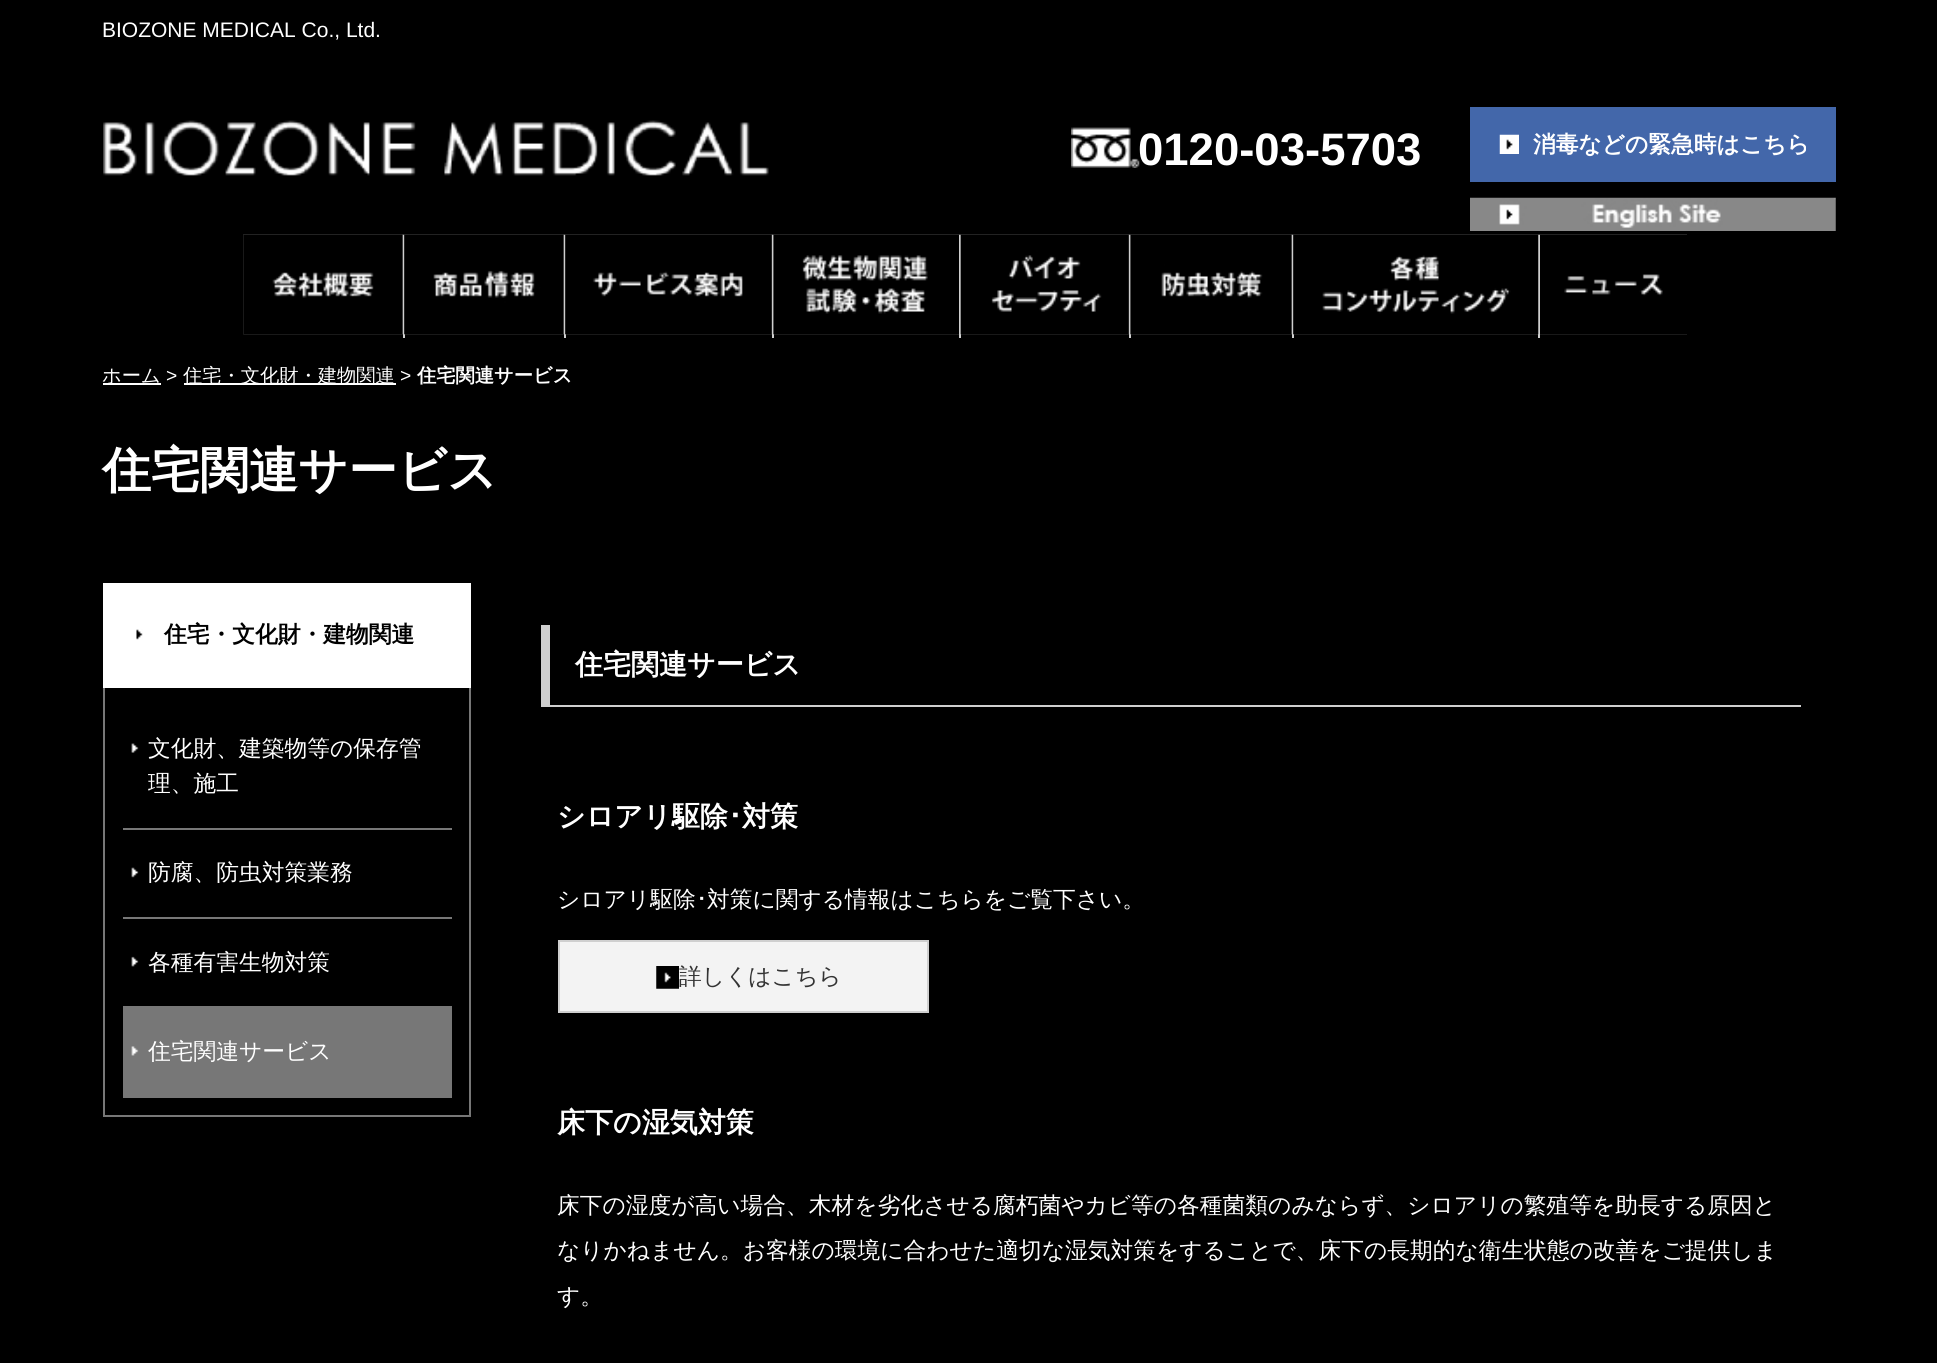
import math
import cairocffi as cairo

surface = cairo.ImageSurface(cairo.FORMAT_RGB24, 1937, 1363)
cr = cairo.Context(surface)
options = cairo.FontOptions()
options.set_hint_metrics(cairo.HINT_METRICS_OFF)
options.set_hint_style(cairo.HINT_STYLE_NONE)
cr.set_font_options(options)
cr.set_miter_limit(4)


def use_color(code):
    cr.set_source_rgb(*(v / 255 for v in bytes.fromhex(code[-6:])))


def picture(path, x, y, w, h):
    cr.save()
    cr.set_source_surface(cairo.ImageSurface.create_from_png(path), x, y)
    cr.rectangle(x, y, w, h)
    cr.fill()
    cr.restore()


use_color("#000000")
cr.paint()
cr.select_font_face("Liberation Sans")
cr.set_font_size(21)
use_color("#ffffff")
cr.move_to(102, 37)
cr.show_text("BIOZONE MEDICAL Co., Ltd.")
picture("img1.png", 103, 120, 666, 56)
picture("img2.png", 1071, 127, 69, 41)
cr.select_font_face("Liberation Sans", cairo.FONT_SLANT_NORMAL, cairo.FONT_WEIGHT_BOLD)
cr.set_font_size(45.5)
cr.move_to(1138, 165)
cr.show_text("0120-03-5703")
use_color("#4367aa")
cr.rectangle(1470, 107, 366, 75)
cr.fill()
picture("img3.png", 1499, 134, 20, 20)
cr.select_font_face("WenQuanYi Zen Hei", cairo.FONT_SLANT_NORMAL, cairo.FONT_WEIGHT_BOLD)
cr.set_font_size(22.75)
use_color("#ffffff")
cr.move_to(1533, 152)
cr.show_text("消毒などの緊急時はこちら")
picture("img4.png", 1470, 197, 366, 34)
picture("img5.png", 243, 234, 162, 101)
use_color("#cfcfcf")
cr.rectangle(403, 235, 2, 103)
cr.fill()
picture("img6.png", 243, 234, 160, 101)
picture("img7.png", 404, 234, 162, 101)
cr.rectangle(564, 235, 2, 103)
cr.fill()
picture("img8.png", 404, 234, 160, 101)
picture("img9.png", 565, 234, 209, 101)
cr.rectangle(772, 235, 2, 103)
cr.fill()
picture("img10.png", 565, 234, 207, 101)
picture("img11.png", 773, 234, 188, 101)
cr.rectangle(959, 235, 2, 103)
cr.fill()
picture("img12.png", 773, 234, 186, 101)
picture("img13.png", 960, 234, 171, 101)
cr.rectangle(1129, 235, 2, 103)
cr.fill()
picture("img14.png", 960, 234, 169, 101)
picture("img15.png", 1130, 234, 164, 101)
cr.rectangle(1292, 235, 2, 103)
cr.fill()
picture("img16.png", 1130, 234, 162, 101)
picture("img17.png", 1293, 234, 247, 101)
cr.rectangle(1538, 235, 2, 103)
cr.fill()
picture("img18.png", 1293, 234, 246, 101)
picture("img19.png", 1540, 234, 147, 101)
picture("img20.png", 1540, 234, 147, 101)
use_color("#ffffff")
cr.rectangle(103, 383, 58, 2)
cr.fill()
cr.select_font_face("WenQuanYi Zen Hei Medium")
cr.set_font_size(19.25)
cr.move_to(102, 382)
cr.show_text("ホーム")
cr.select_font_face("Liberation Sans")
cr.move_to(166, 382)
cr.show_text(">")
cr.rectangle(184, 383, 212, 2)
cr.fill()
cr.select_font_face("WenQuanYi Zen Hei Medium")
cr.move_to(183, 382)
cr.show_text("住宅・文化財・建物関連")
cr.select_font_face("Liberation Sans")
cr.move_to(400, 382)
cr.show_text(">")
cr.select_font_face("WenQuanYi Zen Hei", cairo.FONT_SLANT_NORMAL, cairo.FONT_WEIGHT_BOLD)
cr.move_to(417, 382)
cr.show_text("住宅関連サービス")
cr.set_font_size(49)
cr.move_to(102, 487)
cr.show_text("住宅関連サービス")
cr.rectangle(103, 583, 368, 105)
cr.fill()
picture("img21.png", 136, 629, 7, 11)
cr.set_font_size(22.75)
use_color("#000000")
cr.move_to(164, 642)
cr.show_text("住宅・文化財・建物関連")
use_color("#777777")
cr.rectangle(469, 688, 2, 429)
cr.fill()
cr.rectangle(103, 1115, 368, 2)
cr.fill()
cr.rectangle(103, 688, 2, 429)
cr.fill()
cr.rectangle(123, 828, 329, 2)
cr.fill()
picture("img22.png", 131, 743, 8, 10)
cr.select_font_face("WenQuanYi Zen Hei Medium")
use_color("#ffffff")
cr.move_to(148, 756)
cr.show_text("文化財、建築物等の保存管")
cr.move_to(148, 791)
cr.show_text("理、施工")
use_color("#777777")
cr.rectangle(123, 917, 329, 2)
cr.fill()
picture("img23.png", 131, 867, 8, 11)
use_color("#ffffff")
cr.move_to(148, 880)
cr.show_text("防腐、防虫対策業務")
use_color("#777777")
cr.rectangle(123, 1006, 329, 2)
cr.fill()
picture("img24.png", 131, 956, 8, 11)
use_color("#ffffff")
cr.move_to(148, 970)
cr.show_text("各種有害生物対策")
use_color("#777777")
cr.rectangle(123, 1008, 329, 90)
cr.fill()
picture("img25.png", 131, 1046, 8, 10)
use_color("#ffffff")
cr.move_to(148, 1059)
cr.show_text("住宅関連サービス")
use_color("#cfcfcf")
cr.rectangle(550, 705, 1251, 2)
cr.fill()
cr.rectangle(541, 625, 9, 82)
cr.fill()
cr.select_font_face("WenQuanYi Zen Hei", cairo.FONT_SLANT_NORMAL, cairo.FONT_WEIGHT_BOLD)
cr.set_font_size(28)
use_color("#ffffff")
cr.move_to(575, 674)
cr.show_text("住宅関連サービス")
cr.move_to(557, 826)
cr.show_text("シロアリ駆除")
cr.select_font_face("IPAPGothic", cairo.FONT_SLANT_NORMAL, cairo.FONT_WEIGHT_BOLD)
cr.move_to(728, 826)
cr.show_text("･")
cr.select_font_face("WenQuanYi Zen Hei", cairo.FONT_SLANT_NORMAL, cairo.FONT_WEIGHT_BOLD)
cr.move_to(742, 826)
cr.show_text("対策")
cr.select_font_face("WenQuanYi Zen Hei Medium")
cr.set_font_size(22.75)
cr.move_to(557, 907)
cr.show_text("シロアリ駆除")
cr.select_font_face("IPAPGothic")
cr.move_to(696, 907)
cr.show_text("･")
cr.select_font_face("WenQuanYi Zen Hei Medium")
cr.move_to(707, 907)
cr.show_text("対策に関する情報はこちらをご覧下さい。")
use_color("#f3f3f3")
cr.rectangle(560, 942, 367, 69)
cr.fill()
picture("img26.png", 656, 966, 23, 23)
cr.rectangle(559, 941, 369, 71)
use_color("#cfcfcf")
cr.stroke()
use_color("#333333")
cr.move_to(679, 984)
cr.show_text("詳しくはこちら")
cr.select_font_face("WenQuanYi Zen Hei", cairo.FONT_SLANT_NORMAL, cairo.FONT_WEIGHT_BOLD)
cr.set_font_size(28)
use_color("#ffffff")
cr.move_to(557, 1132)
cr.show_text("床下の湿気対策")
cr.select_font_face("WenQuanYi Zen Hei Medium")
cr.set_font_size(22.75)
cr.move_to(557, 1213)
cr.show_text("床下の湿度が高い場合、木材を劣化させる腐朽菌やカビ等の各種菌類のみならず、シロアリの繁殖等を助長する原因と")
cr.move_to(557, 1258)
cr.show_text("なりかねません。お客様の環境に合わせた適切な湿気対策をすることで、床下の長期的な衛生状態の改善をご提供しま")
cr.move_to(557, 1304)
cr.show_text("す。")
surface.write_to_png("result.png")
